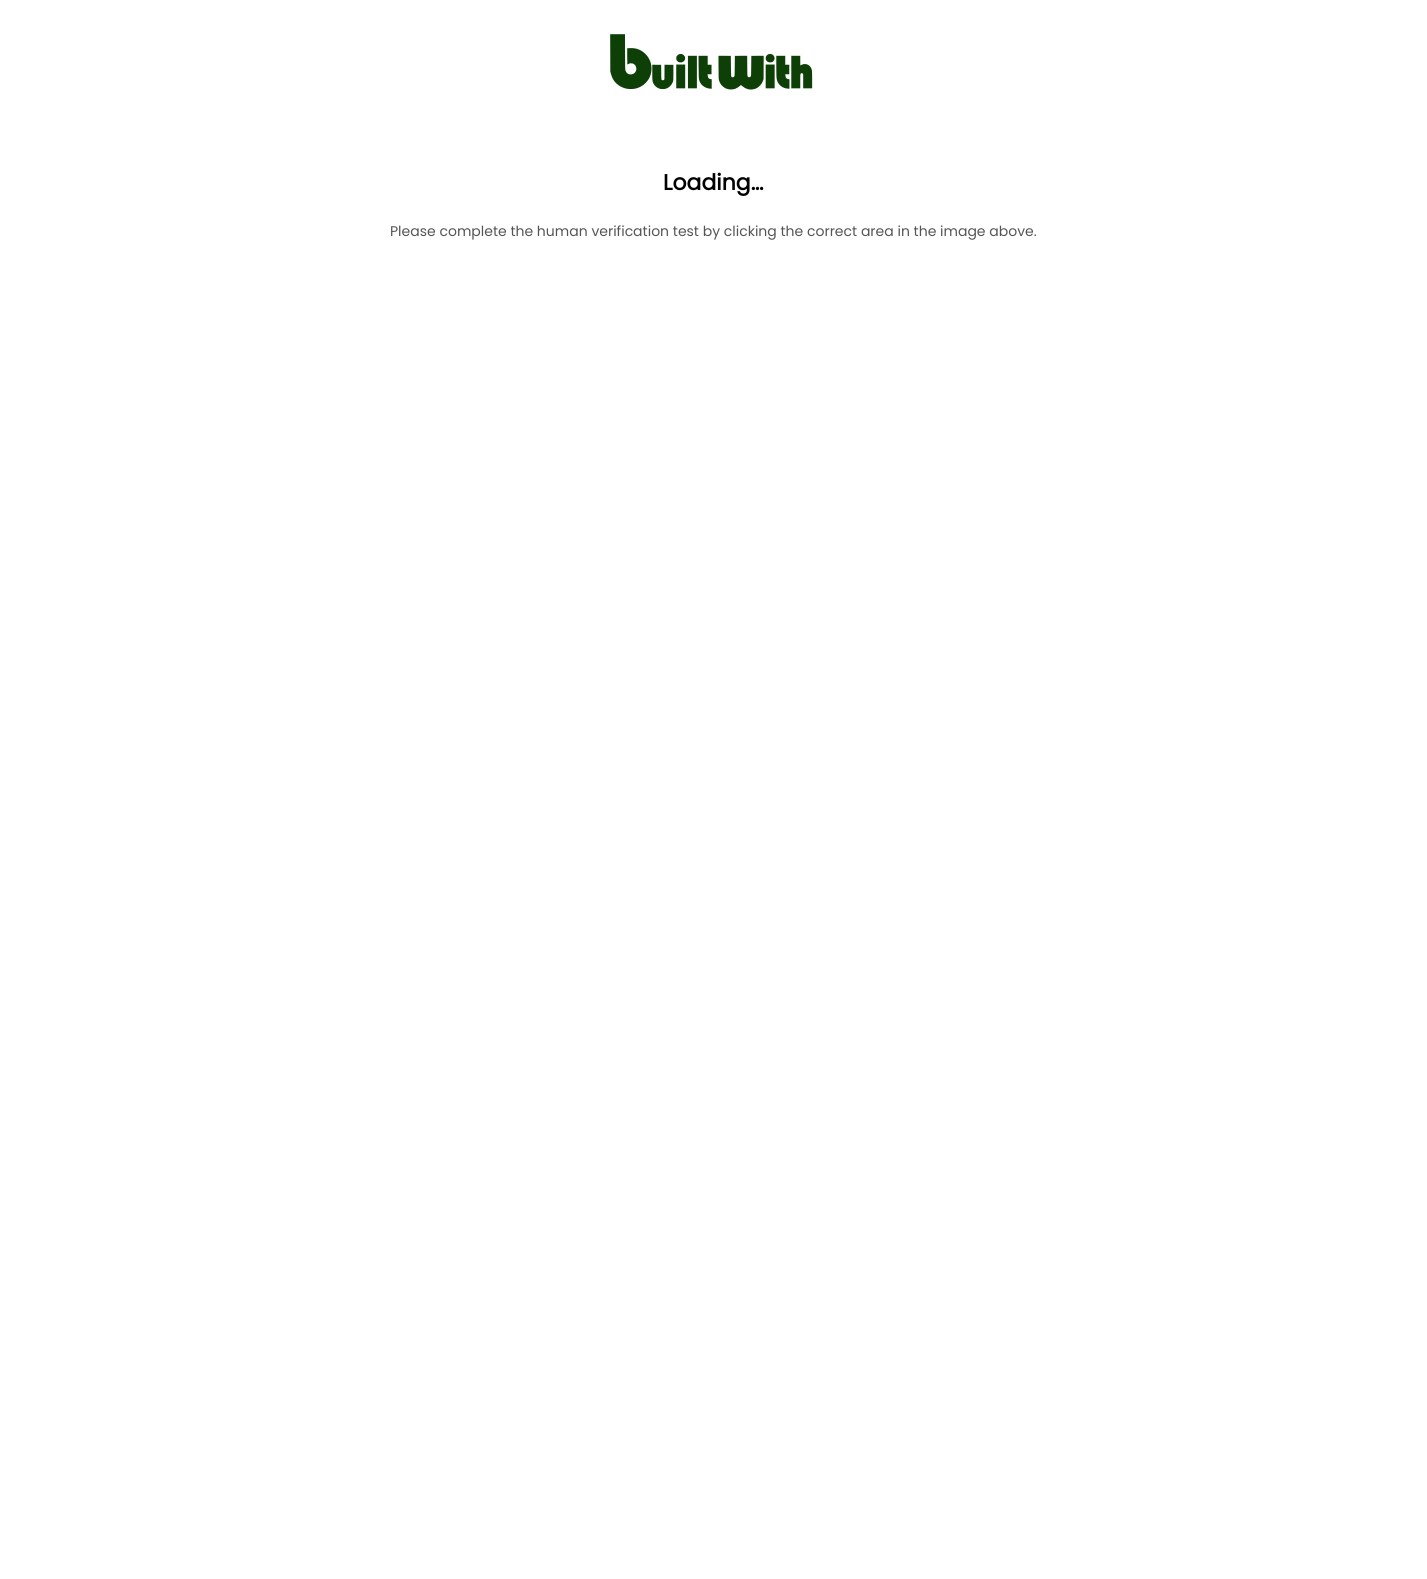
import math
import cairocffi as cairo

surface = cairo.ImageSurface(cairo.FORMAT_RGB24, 1427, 1579)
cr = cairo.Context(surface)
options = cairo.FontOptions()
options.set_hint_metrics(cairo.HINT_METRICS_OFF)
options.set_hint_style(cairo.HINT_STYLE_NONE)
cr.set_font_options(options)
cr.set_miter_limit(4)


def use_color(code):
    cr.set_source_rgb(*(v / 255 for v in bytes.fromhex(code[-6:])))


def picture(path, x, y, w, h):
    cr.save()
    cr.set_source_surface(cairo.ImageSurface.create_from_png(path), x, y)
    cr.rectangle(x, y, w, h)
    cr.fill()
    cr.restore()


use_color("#ffffff")
cr.paint()
picture("img1.png", 610, 34, 203, 56)
cr.select_font_face("Poppins", cairo.FONT_SLANT_NORMAL, cairo.FONT_WEIGHT_BOLD)
cr.set_font_size(22)
use_color("#000000")
cr.move_to(663, 190)
cr.show_text("Loading…")
cr.select_font_face("Poppins")
cr.set_font_size(14)
use_color("#555555")
cr.move_to(390, 236)
cr.show_text("Please complete the human verification test by clicking the correct area in the image above.")
surface.write_to_png("result.png")
